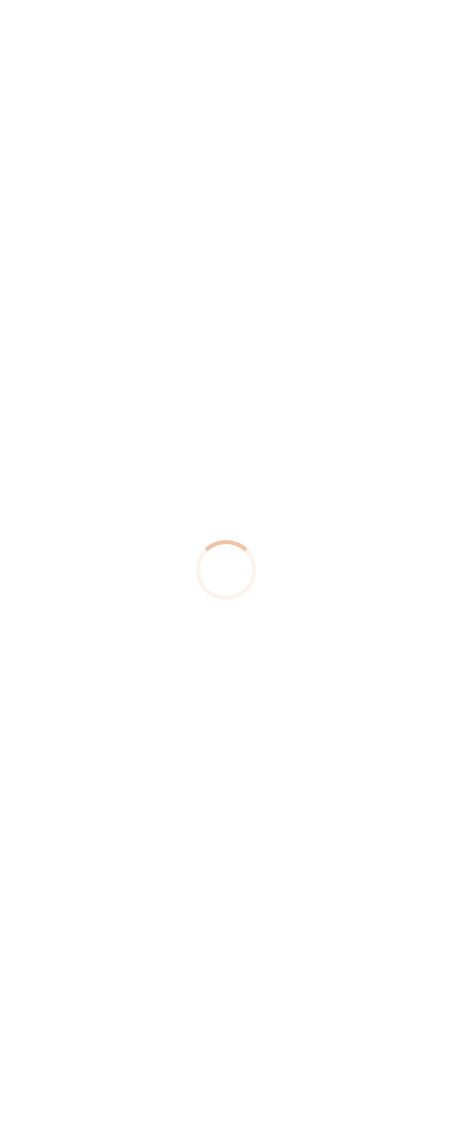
import math
import cairocffi as cairo

surface = cairo.ImageSurface(cairo.FORMAT_RGB24, 452, 1140)
cr = cairo.Context(surface)
options = cairo.FontOptions()
options.set_hint_metrics(cairo.HINT_METRICS_OFF)
options.set_hint_style(cairo.HINT_STYLE_NONE)
cr.set_font_options(options)
cr.set_miter_limit(4)


def use_color(code):
    cr.set_source_rgb(*(v / 255 for v in bytes.fromhex(code[-6:])))


use_color("#ffffff")
cr.paint()
cr.new_path()
cr.move_to(206, 550)
cr.curve_to(217, 539.5, 235, 539.5, 246, 550)
use_color("#f2c3a5")
cr.set_line_width(4)
cr.stroke()
cr.new_path()
cr.move_to(246, 550)
cr.curve_to(251, 555.5, 254, 562.5, 254, 570)
cr.curve_to(254, 603.5, 205, 608, 198.5, 575.5)
cr.curve_to(196.5, 566.5, 199.5, 557, 206, 550)
cr.set_source_rgba(0.949, 0.765, 0.647, 0.2)
cr.stroke()
surface.write_to_png("result.png")
